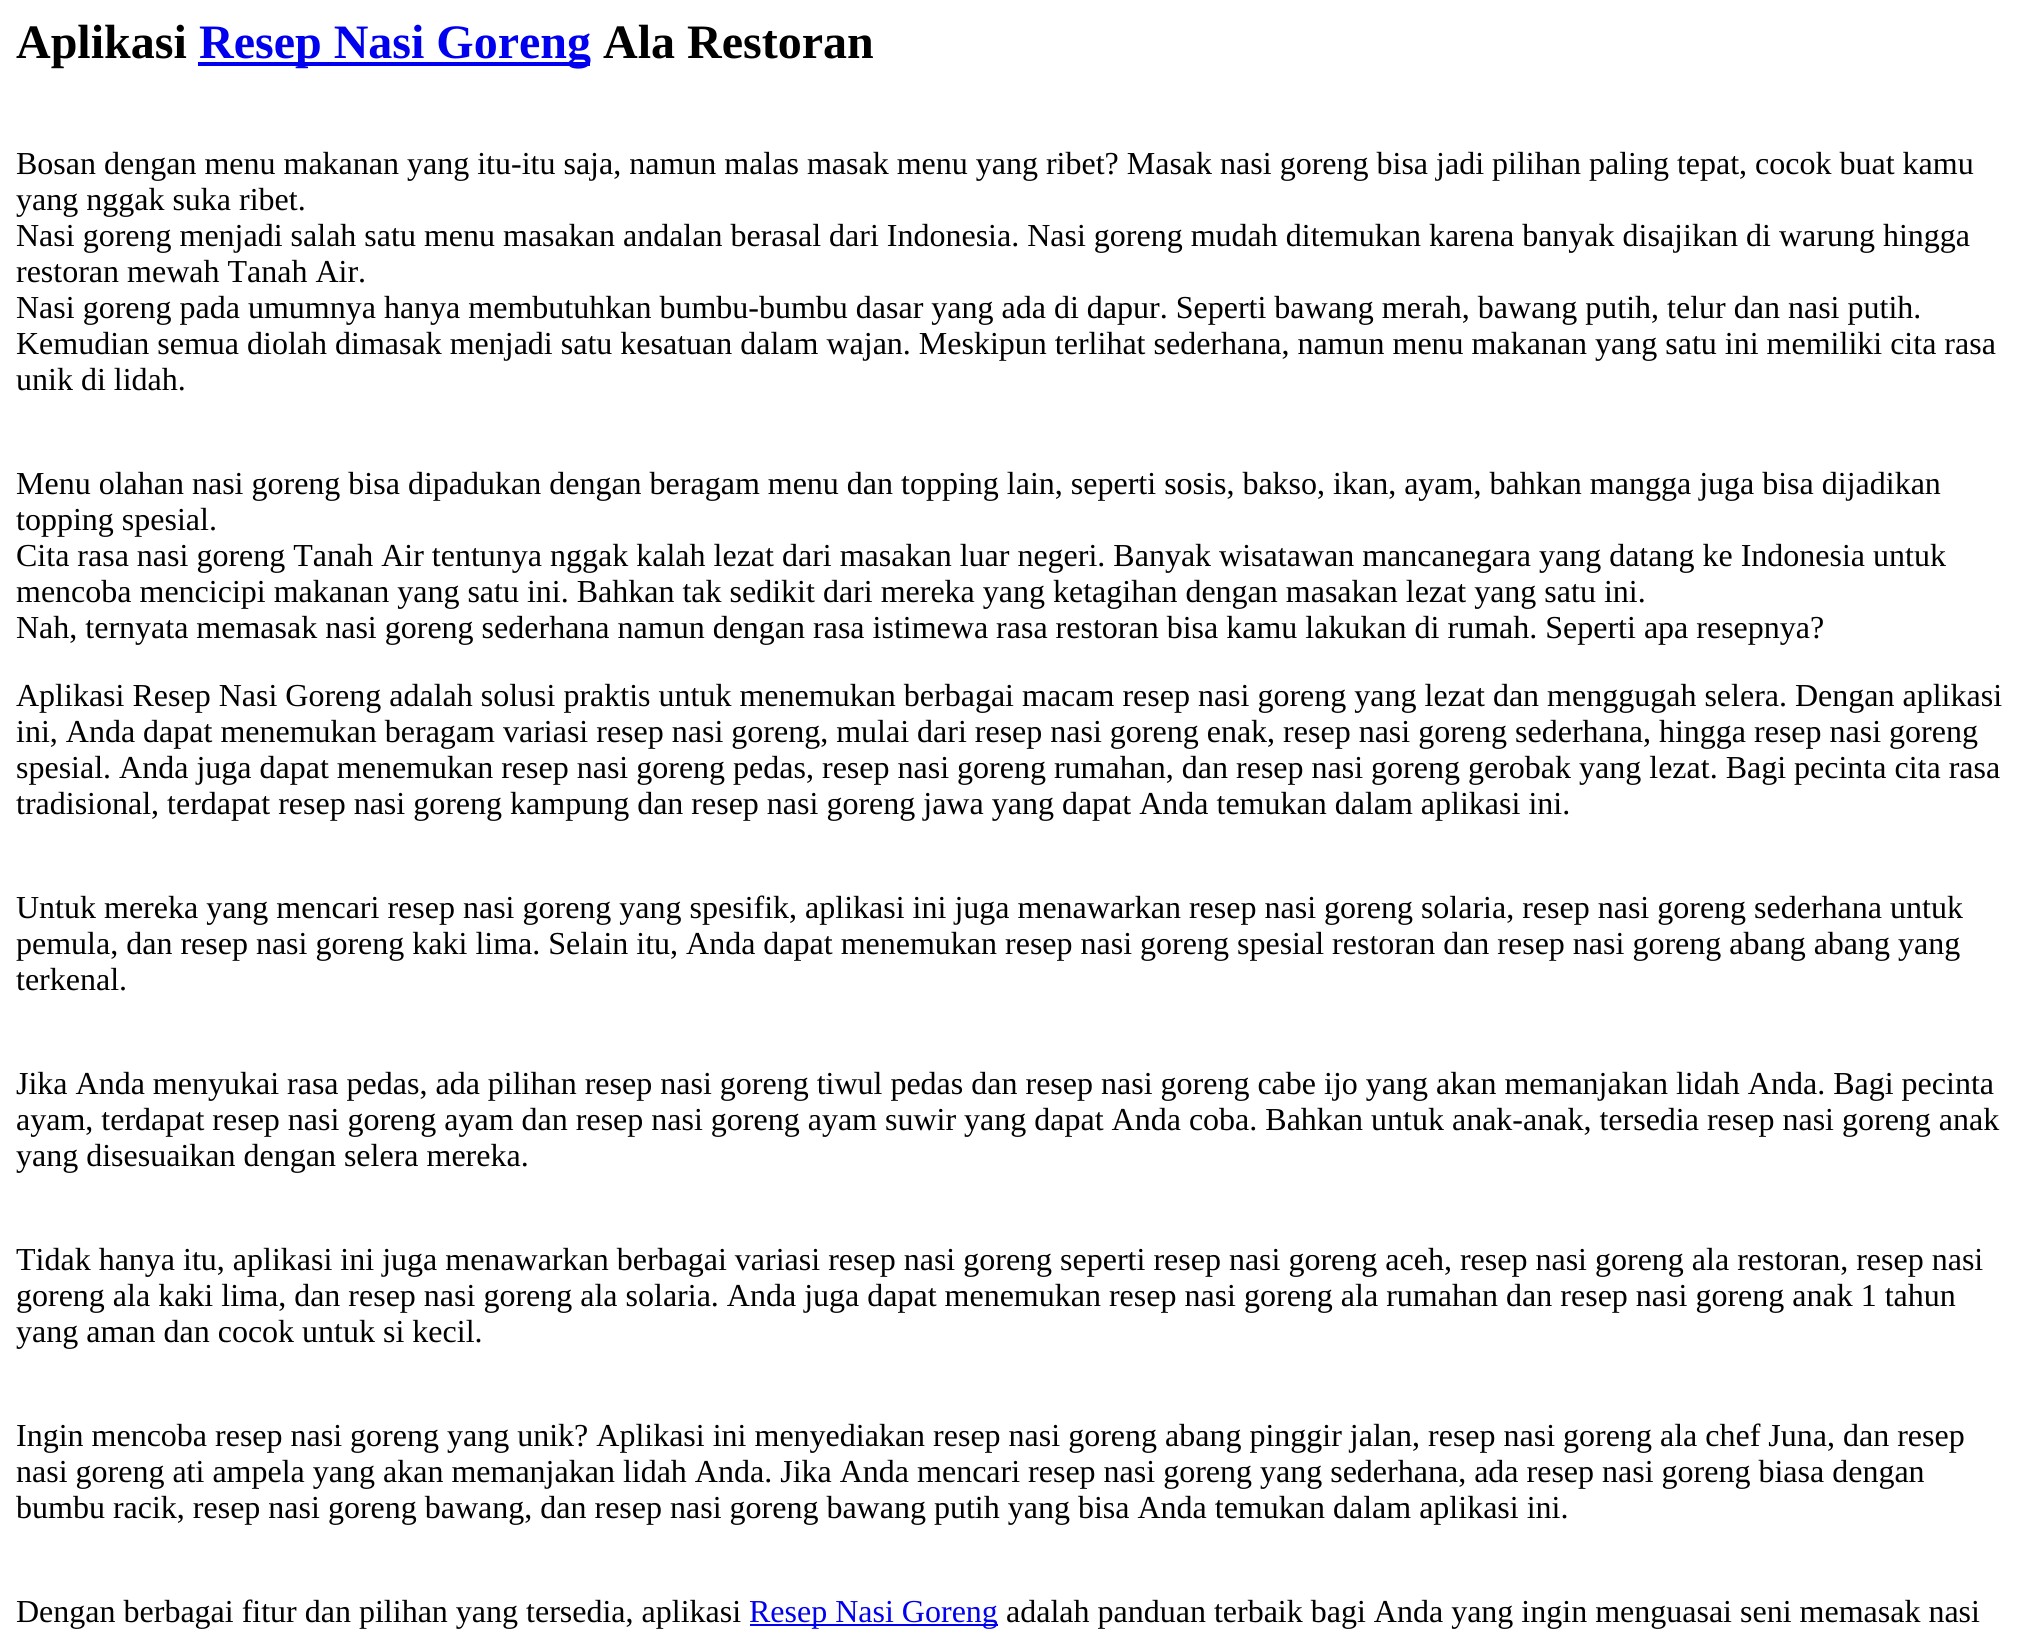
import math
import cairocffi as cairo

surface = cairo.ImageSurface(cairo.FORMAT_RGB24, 2027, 1641)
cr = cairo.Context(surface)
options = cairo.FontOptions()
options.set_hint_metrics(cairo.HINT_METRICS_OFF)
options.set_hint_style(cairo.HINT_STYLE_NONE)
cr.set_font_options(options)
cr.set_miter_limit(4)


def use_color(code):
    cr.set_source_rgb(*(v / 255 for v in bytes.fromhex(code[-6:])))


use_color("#ffffff")
cr.paint()
cr.select_font_face("Liberation Serif", cairo.FONT_SLANT_NORMAL, cairo.FONT_WEIGHT_BOLD)
cr.set_font_size(48)
use_color("#000000")
cr.move_to(16, 58)
cr.show_text("Aplikasi")
use_color("#0000ee")
cr.rectangle(198, 62, 392, 4)
cr.fill()
cr.move_to(199, 58)
cr.show_text("Resep Nasi Goreng")
use_color("#000000")
cr.move_to(603, 58)
cr.show_text("Ala Restoran")
cr.select_font_face("Liberation Serif")
cr.set_font_size(32)
cr.move_to(16, 174)
cr.show_text("Bosan dengan menu makanan yang itu-itu saja, namun malas masak menu yang ribet? Masak nasi goreng bisa jadi pilihan paling tepat, cocok buat kamu")
cr.move_to(16, 210)
cr.show_text("yang nggak suka ribet.")
cr.move_to(16, 246)
cr.show_text("Nasi goreng menjadi salah satu menu masakan andalan berasal dari Indonesia. Nasi goreng mudah ditemukan karena banyak disajikan di warung hingga")
cr.move_to(16, 282)
cr.show_text("restoran mewah Tanah Air.")
cr.move_to(16, 318)
cr.show_text("Nasi goreng pada umumnya hanya membutuhkan bumbu-bumbu dasar yang ada di dapur. Seperti bawang merah, bawang putih, telur dan nasi putih.")
cr.move_to(16, 354)
cr.show_text("Kemudian semua diolah dimasak menjadi satu kesatuan dalam wajan. Meskipun terlihat sederhana, namun menu makanan yang satu ini memiliki cita rasa")
cr.move_to(16, 390)
cr.show_text("unik di lidah.")
cr.move_to(16, 494)
cr.show_text("Menu olahan nasi goreng bisa dipadukan dengan beragam menu dan topping lain, seperti sosis, bakso, ikan, ayam, bahkan mangga juga bisa dijadikan")
cr.move_to(16, 530)
cr.show_text("topping spesial.")
cr.move_to(16, 566)
cr.show_text("Cita rasa nasi goreng Tanah Air tentunya nggak kalah lezat dari masakan luar negeri. Banyak wisatawan mancanegara yang datang ke Indonesia untuk")
cr.move_to(16, 602)
cr.show_text("mencoba mencicipi makanan yang satu ini. Bahkan tak sedikit dari mereka yang ketagihan dengan masakan lezat yang satu ini.")
cr.move_to(16, 638)
cr.show_text("Nah, ternyata memasak nasi goreng sederhana namun dengan rasa istimewa rasa restoran bisa kamu lakukan di rumah. Seperti apa resepnya?")
cr.move_to(16, 706)
cr.show_text("Aplikasi Resep Nasi Goreng adalah solusi praktis untuk menemukan berbagai macam resep nasi goreng yang lezat dan menggugah selera. Dengan aplikasi")
cr.move_to(16, 742)
cr.show_text("ini, Anda dapat menemukan beragam variasi resep nasi goreng, mulai dari resep nasi goreng enak, resep nasi goreng sederhana, hingga resep nasi goreng")
cr.move_to(16, 778)
cr.show_text("spesial. Anda juga dapat menemukan resep nasi goreng pedas, resep nasi goreng rumahan, dan resep nasi goreng gerobak yang lezat. Bagi pecinta cita rasa")
cr.move_to(16, 814)
cr.show_text("tradisional, terdapat resep nasi goreng kampung dan resep nasi goreng jawa yang dapat Anda temukan dalam aplikasi ini.")
cr.move_to(16, 918)
cr.show_text("Untuk mereka yang mencari resep nasi goreng yang spesifik, aplikasi ini juga menawarkan resep nasi goreng solaria, resep nasi goreng sederhana untuk")
cr.move_to(16, 954)
cr.show_text("pemula, dan resep nasi goreng kaki lima. Selain itu, Anda dapat menemukan resep nasi goreng spesial restoran dan resep nasi goreng abang abang yang")
cr.move_to(16, 990)
cr.show_text("terkenal.")
cr.move_to(16, 1094)
cr.show_text("Jika Anda menyukai rasa pedas, ada pilihan resep nasi goreng tiwul pedas dan resep nasi goreng cabe ijo yang akan memanjakan lidah Anda. Bagi pecinta")
cr.move_to(16, 1130)
cr.show_text("ayam, terdapat resep nasi goreng ayam dan resep nasi goreng ayam suwir yang dapat Anda coba. Bahkan untuk anak-anak, tersedia resep nasi goreng anak")
cr.move_to(16, 1166)
cr.show_text("yang disesuaikan dengan selera mereka.")
cr.move_to(16, 1270)
cr.show_text("Tidak hanya itu, aplikasi ini juga menawarkan berbagai variasi resep nasi goreng seperti resep nasi goreng aceh, resep nasi goreng ala restoran, resep nasi")
cr.move_to(16, 1306)
cr.show_text("goreng ala kaki lima, dan resep nasi goreng ala solaria. Anda juga dapat menemukan resep nasi goreng ala rumahan dan resep nasi goreng anak 1 tahun")
cr.move_to(16, 1342)
cr.show_text("yang aman dan cocok untuk si kecil.")
cr.move_to(16, 1446)
cr.show_text("Ingin mencoba resep nasi goreng yang unik? Aplikasi ini menyediakan resep nasi goreng abang pinggir jalan, resep nasi goreng ala chef Juna, dan resep")
cr.move_to(16, 1482)
cr.show_text("nasi goreng ati ampela yang akan memanjakan lidah Anda. Jika Anda mencari resep nasi goreng yang sederhana, ada resep nasi goreng biasa dengan")
cr.move_to(16, 1518)
cr.show_text("bumbu racik, resep nasi goreng bawang, dan resep nasi goreng bawang putih yang bisa Anda temukan dalam aplikasi ini.")
cr.move_to(16, 1622)
cr.show_text("Dengan berbagai fitur dan pilihan yang tersedia, aplikasi")
use_color("#0000ee")
cr.rectangle(750, 1624, 248, 2)
cr.fill()
cr.move_to(749, 1622)
cr.show_text("Resep Nasi Goreng")
use_color("#000000")
cr.move_to(1006, 1622)
cr.show_text("adalah panduan terbaik bagi Anda yang ingin menguasai seni memasak nasi")
surface.write_to_png("result.png")
